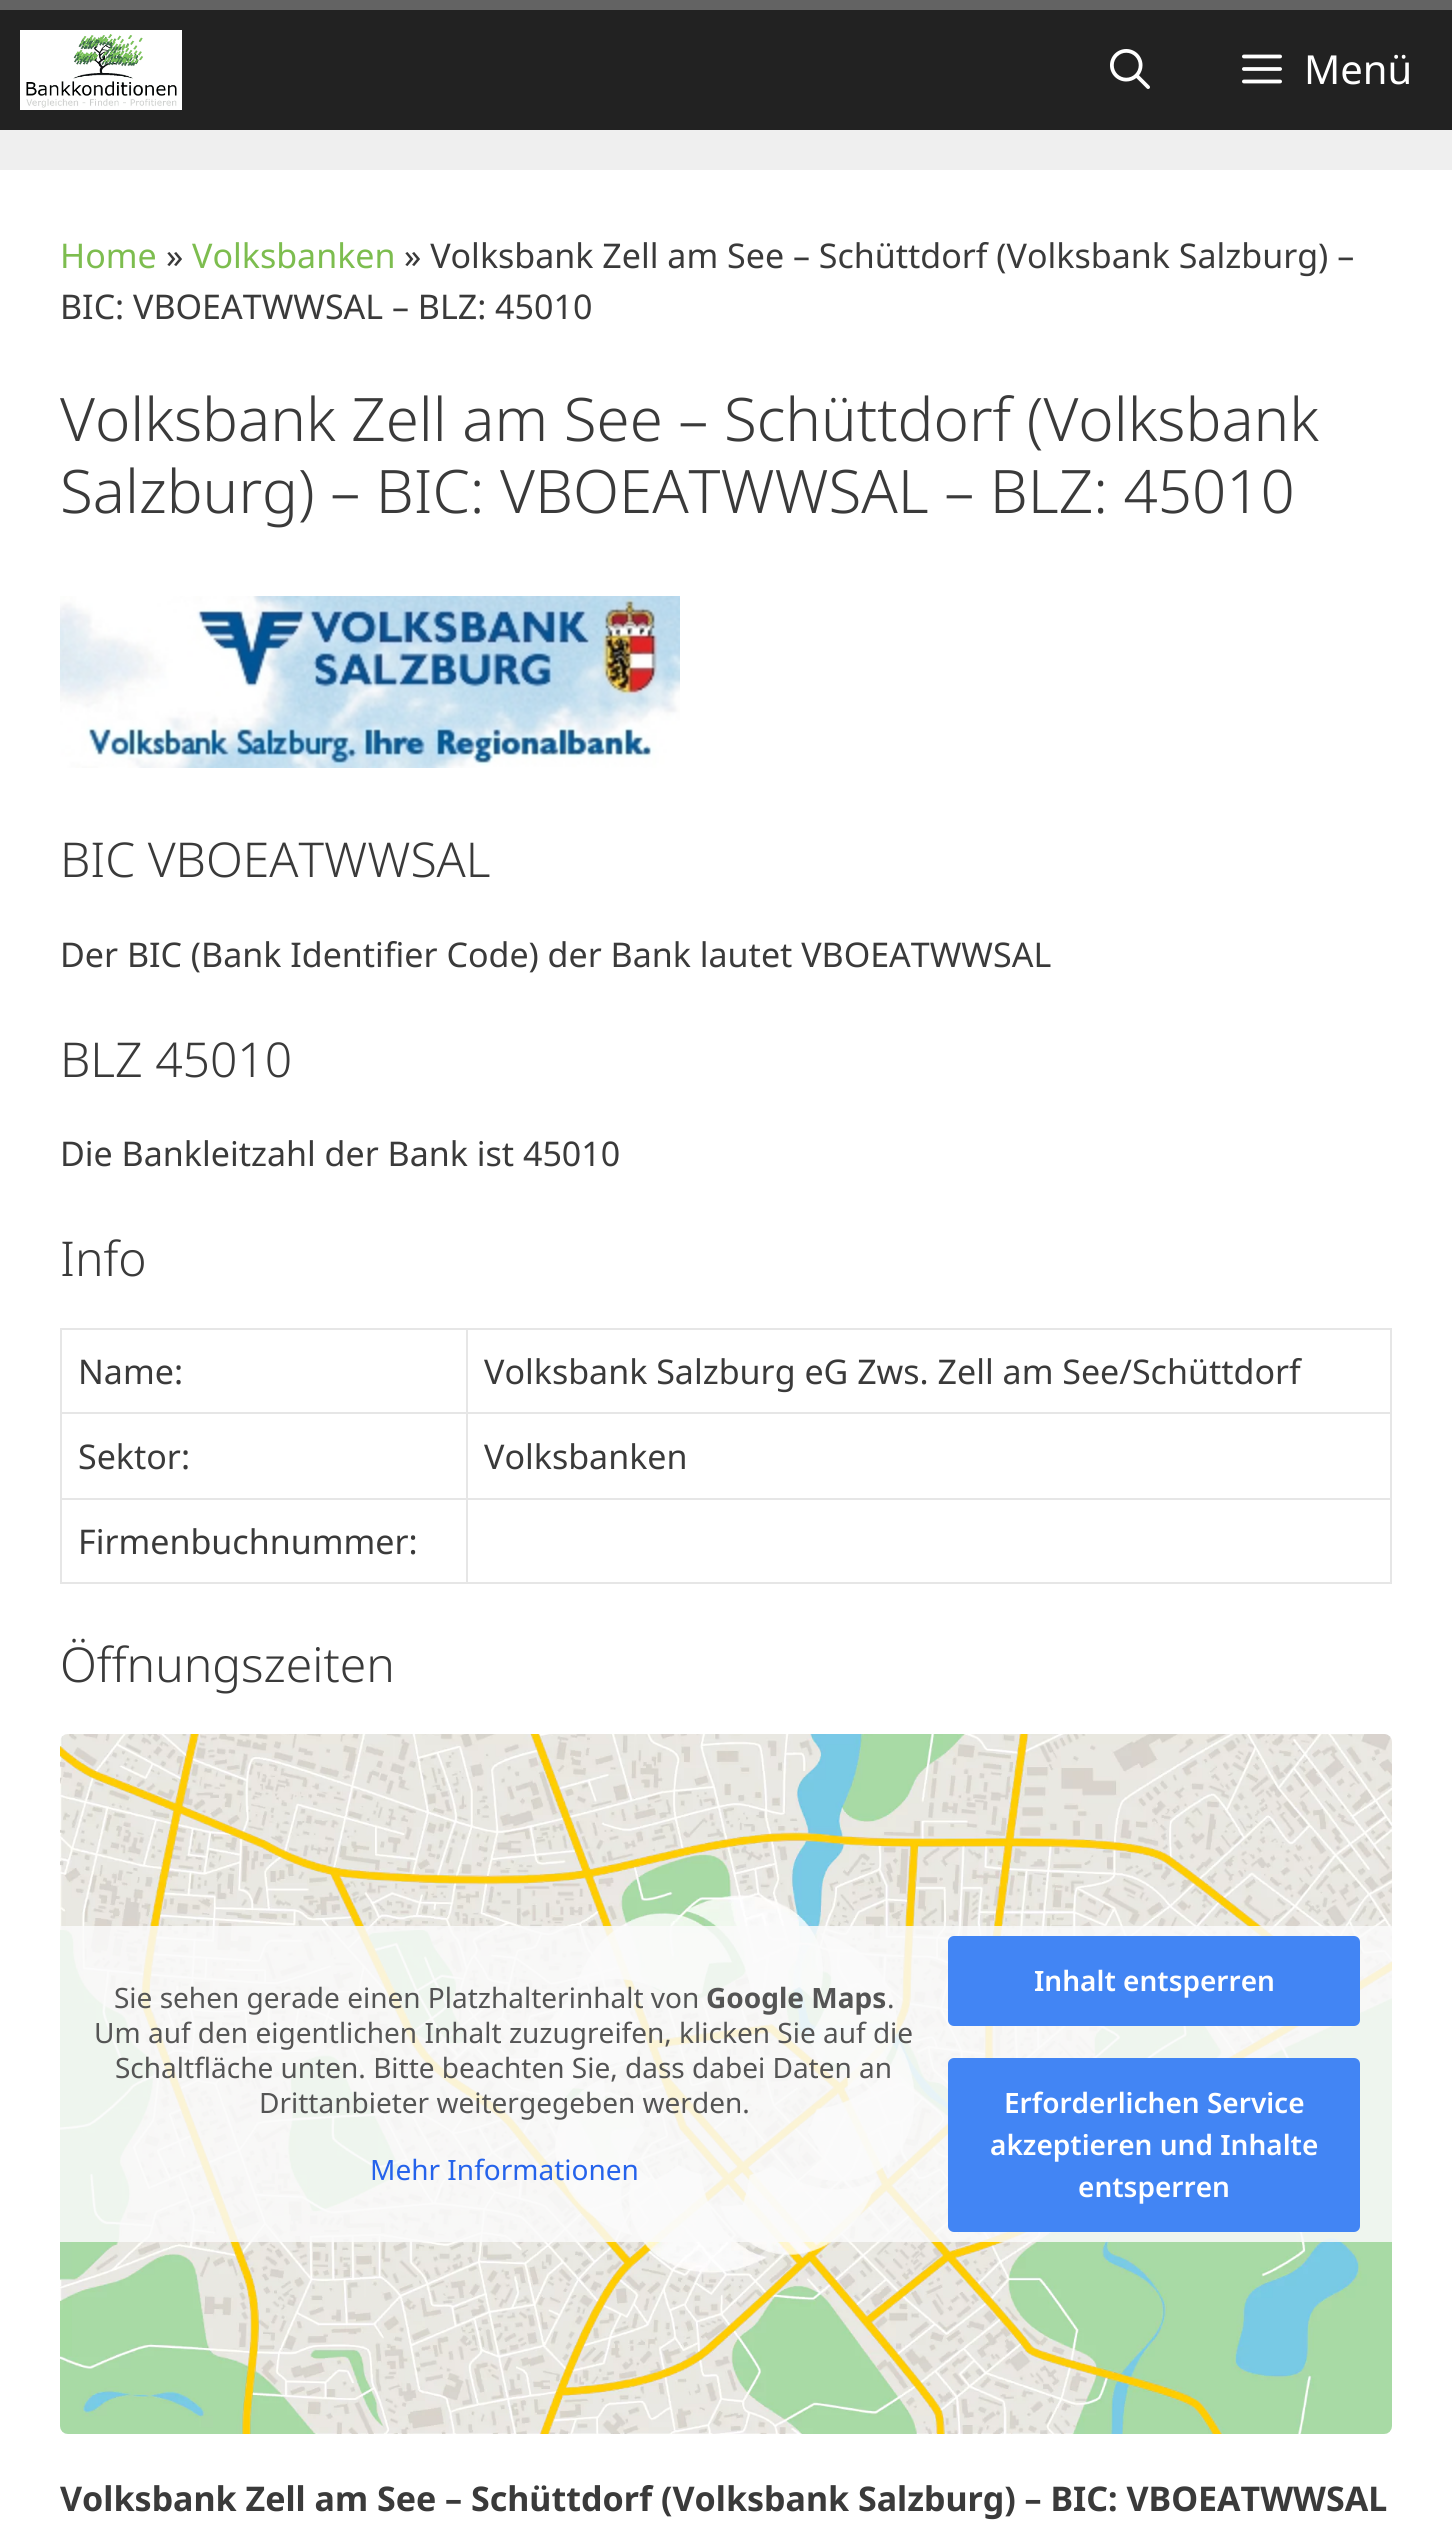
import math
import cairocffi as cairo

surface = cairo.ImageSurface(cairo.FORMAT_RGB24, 1452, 2530)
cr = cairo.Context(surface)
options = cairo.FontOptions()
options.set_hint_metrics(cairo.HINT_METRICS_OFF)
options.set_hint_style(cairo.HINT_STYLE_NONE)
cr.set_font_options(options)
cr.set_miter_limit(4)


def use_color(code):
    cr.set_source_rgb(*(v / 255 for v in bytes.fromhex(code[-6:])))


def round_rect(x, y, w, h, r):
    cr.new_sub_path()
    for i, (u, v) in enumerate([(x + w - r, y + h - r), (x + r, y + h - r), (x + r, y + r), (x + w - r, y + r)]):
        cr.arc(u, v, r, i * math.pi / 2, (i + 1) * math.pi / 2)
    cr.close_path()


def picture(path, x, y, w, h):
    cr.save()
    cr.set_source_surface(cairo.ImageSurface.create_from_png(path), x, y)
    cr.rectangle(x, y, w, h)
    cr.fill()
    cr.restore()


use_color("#efefef")
cr.paint()
use_color("#636363")
cr.rectangle(0, 0, 1452, 10)
cr.fill()
use_color("#222222")
cr.rectangle(0, 10, 1452, 120)
cr.fill()
picture("img1.png", 20, 30, 162, 80)
picture("img2.png", 1110, 49, 40, 40)
picture("img3.png", 1242, 54, 40, 30)
cr.select_font_face("Noto Sans")
cr.set_font_size(40)
use_color("#ffffff")
cr.move_to(1304, 84)
cr.show_text("Menü")
cr.rectangle(0, 170, 1452, 2360)
cr.fill()
cr.set_font_size(34)
use_color("#7dbd4f")
cr.move_to(60, 268)
cr.show_text("Home")
use_color("#3a3a3a")
cr.move_to(166, 268)
cr.show_text("»")
use_color("#7dbd4f")
cr.move_to(192, 268)
cr.show_text("Volksbanken")
use_color("#3a3a3a")
cr.move_to(404, 268)
cr.show_text("» Volksbank Zell am See – Schüttdorf (Volksbank Salzburg) –")
cr.move_to(60, 319)
cr.show_text("BIC: VBOEATWWSAL – BLZ: 45010")
cr.select_font_face("Noto Sans Light")
cr.set_font_size(60)
cr.move_to(60, 441)
cr.show_text("Volksbank Zell am See – Schüttdorf (Volksbank")
cr.move_to(60, 513)
cr.show_text("Salzburg) – BIC: VBOEATWWSAL – BLZ: 45010")
picture("img4.png", 60, 596, 620, 172)
cr.set_font_size(48)
cr.move_to(60, 877)
cr.show_text("BIC VBOEATWWSAL")
cr.select_font_face("Noto Sans")
cr.set_font_size(34)
cr.move_to(60, 967)
cr.show_text("Der BIC (Bank Identifier Code) der Bank lautet VBOEATWWSAL")
cr.select_font_face("Noto Sans Light")
cr.set_font_size(48)
cr.move_to(60, 1077)
cr.show_text("BLZ 45010")
cr.select_font_face("Noto Sans")
cr.set_font_size(34)
cr.move_to(60, 1166)
cr.show_text("Die Bankleitzahl der Bank ist 45010")
cr.select_font_face("Noto Sans Light")
cr.set_font_size(48)
cr.move_to(60, 1276)
cr.show_text("Info")
use_color("#e6e6e6")
cr.new_path()
cr.move_to(60, 1328)
cr.line_to(1392, 1328)
cr.line_to(1392, 1330)
cr.line_to(62, 1330)
cr.close_path()
cr.fill()
cr.set_source_rgba(0, 0, 0, 0.1)
cr.new_path()
cr.move_to(60, 1584)
cr.line_to(60, 1328)
cr.line_to(62, 1330)
cr.line_to(62, 1584)
cr.close_path()
cr.fill()
use_color("#e6e6e6")
cr.new_path()
cr.move_to(468, 1330)
cr.line_to(468, 1414)
cr.line_to(466, 1412)
cr.line_to(466, 1330)
cr.close_path()
cr.fill()
cr.set_source_rgba(0, 0, 0, 0.1)
cr.new_path()
cr.move_to(468, 1414)
cr.line_to(62, 1414)
cr.line_to(62, 1412)
cr.line_to(466, 1412)
cr.close_path()
cr.fill()
cr.select_font_face("Noto Sans")
cr.set_font_size(34)
use_color("#3a3a3a")
cr.move_to(78, 1384)
cr.show_text("Name:")
use_color("#e6e6e6")
cr.new_path()
cr.move_to(1392, 1330)
cr.line_to(1392, 1414)
cr.line_to(1390, 1412)
cr.line_to(1390, 1330)
cr.close_path()
cr.fill()
cr.set_source_rgba(0, 0, 0, 0.1)
cr.new_path()
cr.move_to(1392, 1414)
cr.line_to(468, 1414)
cr.line_to(468, 1412)
cr.line_to(1390, 1412)
cr.close_path()
cr.fill()
use_color("#3a3a3a")
cr.move_to(484, 1384)
cr.show_text("Volksbank Salzburg eG Zws. Zell am See/Schüttdorf")
use_color("#e6e6e6")
cr.new_path()
cr.move_to(468, 1414)
cr.line_to(468, 1500)
cr.line_to(466, 1498)
cr.line_to(466, 1414)
cr.close_path()
cr.fill()
cr.set_source_rgba(0, 0, 0, 0.1)
cr.new_path()
cr.move_to(468, 1500)
cr.line_to(62, 1500)
cr.line_to(62, 1498)
cr.line_to(466, 1498)
cr.close_path()
cr.fill()
use_color("#3a3a3a")
cr.move_to(78, 1469)
cr.show_text("Sektor:")
use_color("#e6e6e6")
cr.new_path()
cr.move_to(1392, 1414)
cr.line_to(1392, 1500)
cr.line_to(1390, 1498)
cr.line_to(1390, 1414)
cr.close_path()
cr.fill()
cr.set_source_rgba(0, 0, 0, 0.1)
cr.new_path()
cr.move_to(1392, 1500)
cr.line_to(468, 1500)
cr.line_to(468, 1498)
cr.line_to(1390, 1498)
cr.close_path()
cr.fill()
use_color("#3a3a3a")
cr.move_to(484, 1469)
cr.show_text("Volksbanken")
use_color("#e6e6e6")
cr.new_path()
cr.move_to(468, 1500)
cr.line_to(468, 1584)
cr.line_to(466, 1582)
cr.line_to(466, 1500)
cr.close_path()
cr.fill()
cr.set_source_rgba(0, 0, 0, 0.1)
cr.new_path()
cr.move_to(468, 1584)
cr.line_to(62, 1584)
cr.line_to(62, 1582)
cr.line_to(466, 1582)
cr.close_path()
cr.fill()
use_color("#3a3a3a")
cr.move_to(78, 1554)
cr.show_text("Firmenbuchnummer:")
use_color("#e6e6e6")
cr.new_path()
cr.move_to(1392, 1500)
cr.line_to(1392, 1584)
cr.line_to(1390, 1582)
cr.line_to(1390, 1500)
cr.close_path()
cr.fill()
cr.set_source_rgba(0, 0, 0, 0.1)
cr.new_path()
cr.move_to(1392, 1584)
cr.line_to(468, 1584)
cr.line_to(468, 1582)
cr.line_to(1390, 1582)
cr.close_path()
cr.fill()
cr.select_font_face("Noto Sans Light")
cr.set_font_size(48)
use_color("#3a3a3a")
cr.move_to(60, 1682)
cr.show_text("Öffnungszeiten")
use_color("#fafafa")
round_rect(60, 1734, 1332, 700, 8)
cr.fill()
picture("img5.png", 60, 1734, 1332, 700)
cr.set_source_rgba(0.98, 0.98, 0.98, 0.85)
cr.rectangle(60, 1926, 1332, 316)
cr.fill()
cr.select_font_face("Noto Sans")
cr.set_font_size(28)
use_color("#555555")
cr.move_to(114, 2008)
cr.show_text("Sie sehen gerade einen Platzhalterinhalt von")
cr.select_font_face("Noto Sans", cairo.FONT_SLANT_NORMAL, cairo.FONT_WEIGHT_BOLD)
cr.move_to(706, 2008)
cr.show_text("Google Maps")
cr.select_font_face("Noto Sans")
cr.move_to(887, 2008)
cr.show_text(".")
cr.move_to(94, 2043)
cr.show_text("Um auf den eigentlichen Inhalt zuzugreifen, klicken Sie auf die")
cr.move_to(115, 2078)
cr.show_text("Schaltfläche unten. Bitte beachten Sie, dass dabei Daten an")
cr.move_to(259, 2113)
cr.show_text("Drittanbieter weitergegeben werden.")
use_color("#2563eb")
cr.move_to(370, 2180)
cr.show_text("Mehr Informationen")
use_color("#4285f4")
round_rect(948, 1936, 412, 90, 6)
cr.fill()
cr.select_font_face("Noto Sans SemiBold")
use_color("#ffffff")
cr.move_to(1034, 1991)
cr.show_text("Inhalt entsperren")
use_color("#4285f4")
round_rect(948, 2058, 412, 174, 6)
cr.fill()
use_color("#ffffff")
cr.move_to(1004, 2113)
cr.show_text("Erforderlichen Service")
cr.move_to(990, 2155)
cr.show_text("akzeptieren und Inhalte")
cr.move_to(1078, 2197)
cr.show_text("entsperren")
cr.select_font_face("Noto Sans", cairo.FONT_SLANT_NORMAL, cairo.FONT_WEIGHT_BOLD)
cr.set_font_size(34)
use_color("#3a3a3a")
cr.move_to(60, 2511)
cr.show_text("Volksbank Zell am See – Schüttdorf (Volksbank Salzburg) – BIC: VBOEATWWSAL")
surface.write_to_png("result.png")
